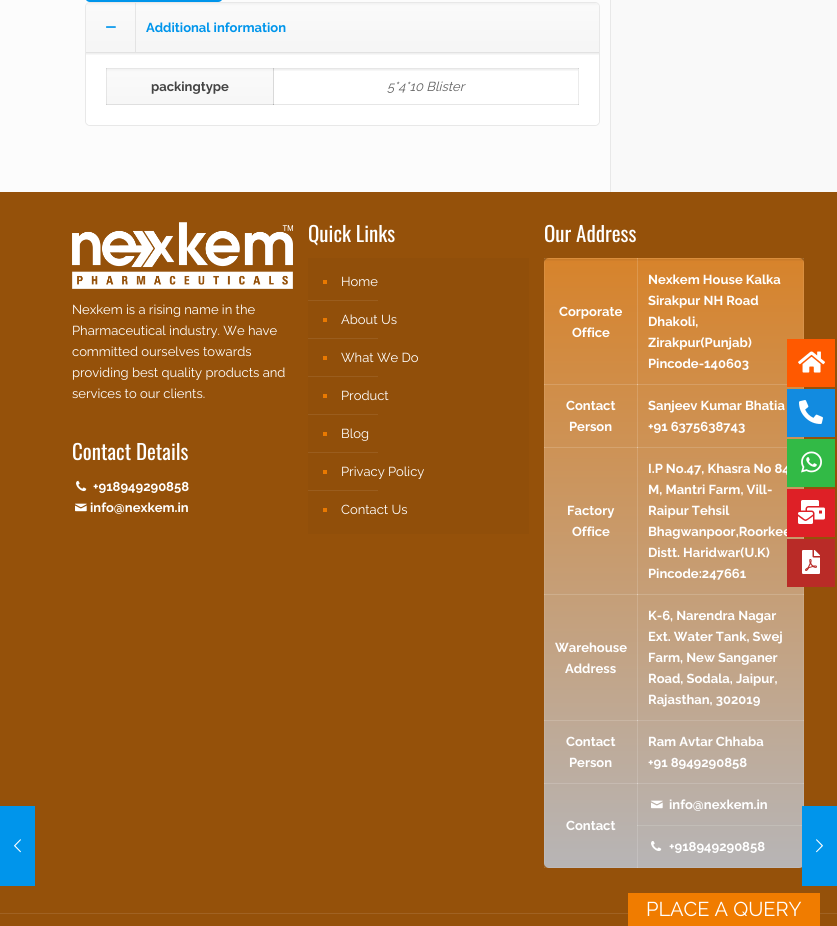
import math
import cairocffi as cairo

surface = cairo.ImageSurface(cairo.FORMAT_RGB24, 837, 926)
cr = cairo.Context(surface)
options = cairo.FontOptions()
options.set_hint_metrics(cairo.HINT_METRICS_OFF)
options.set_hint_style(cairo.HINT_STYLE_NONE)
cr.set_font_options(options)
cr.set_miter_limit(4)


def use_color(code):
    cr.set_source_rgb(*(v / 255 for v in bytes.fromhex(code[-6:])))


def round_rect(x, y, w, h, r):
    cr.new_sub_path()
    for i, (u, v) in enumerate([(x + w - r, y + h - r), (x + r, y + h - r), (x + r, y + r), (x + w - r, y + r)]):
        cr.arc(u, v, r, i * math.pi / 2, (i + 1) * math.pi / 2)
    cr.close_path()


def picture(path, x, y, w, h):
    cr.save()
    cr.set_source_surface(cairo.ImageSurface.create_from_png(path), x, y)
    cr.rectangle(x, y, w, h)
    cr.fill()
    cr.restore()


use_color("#fcfcfc")
cr.paint()
use_color("#0095eb")
round_rect(85, -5, 138, 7, 5)
cr.fill()
round_rect(85.5, 2.5, 514, 123, 4.5)
use_color("#e8e8e8")
cr.set_line_width(1)
cr.stroke()
picture("img1.png", 86, 3, 513, 49)
use_color("#e2e2e2")
cr.rectangle(86, 52, 513, 1)
cr.fill()
picture("img2.png", 106, 26, 10, 2)
cr.set_source_rgba(0, 0, 0, 0.08)
cr.rectangle(135, 3, 1, 49)
cr.fill()
cr.select_font_face("Raleway", cairo.FONT_SLANT_NORMAL, cairo.FONT_WEIGHT_BOLD)
cr.set_font_size(13)
use_color("#0095eb")
cr.move_to(146, 32)
cr.show_text("Additional information")
use_color("#ffffff")
cr.new_path()
cr.move_to(86, 53)
cr.line_to(599, 53)
cr.line_to(599, 121)
cr.curve_to(599, 123, 597, 125, 595, 125)
cr.line_to(90, 125)
cr.curve_to(88, 125, 86, 123, 86, 121)
cr.close_path()
cr.fill()
use_color("#e6e6e6")
cr.rectangle(273, 104, 306, 1)
cr.fill()
use_color("#ebebeb")
cr.rectangle(578, 68, 1, 37)
cr.fill()
use_color("#d4d4d4")
cr.rectangle(578, 104, 1, 1)
cr.fill()
picture("img3.png", 86, 53, 513, 2)
use_color("#e6e6e6")
cr.rectangle(106, 68, 473, 1)
cr.fill()
use_color("#d4d4d4")
cr.rectangle(578, 68, 1, 1)
cr.fill()
picture("img4.png", 106, 69, 167, 36)
picture("img5.png", 273, 69, 305, 2)
cr.set_source_rgba(0, 0, 0, 0.08)
cr.rectangle(273, 68, 1, 37)
cr.fill()
cr.rectangle(273, 68, 1, 37)
cr.fill()
cr.set_source_rgba(0, 0, 0, 0.1)
cr.rectangle(106, 104, 168, 1)
cr.fill()
cr.set_source_rgba(0, 0, 0, 0.08)
cr.rectangle(106, 68, 1, 37)
cr.fill()
use_color("#444444")
cr.move_to(151, 91)
cr.show_text("packingtype")
cr.select_font_face("Raleway", cairo.FONT_SLANT_ITALIC)
use_color("#626262")
cr.move_to(387, 91)
cr.show_text("5*4*10 Blister")
use_color("#e8e8e8")
cr.rectangle(610, 0, 1, 192)
cr.fill()
use_color("#f9f9f9")
cr.rectangle(611, 0, 226, 192)
cr.fill()
use_color("#95510a")
cr.rectangle(0, 192, 837, 734)
cr.fill()
picture("img6.png", 72, 222, 221, 67)
cr.select_font_face("Raleway")
use_color("#ffffff")
cr.move_to(72, 314)
cr.show_text("Nexkem is a rising name in the")
cr.move_to(72, 335)
cr.show_text("Pharmaceutical industry. We have")
cr.move_to(72, 356)
cr.show_text("committed ourselves towards")
cr.move_to(72, 377)
cr.show_text("providing best quality products and")
cr.move_to(72, 398)
cr.show_text("services to our clients.")
cr.select_font_face("Oswald")
cr.set_font_size(21)
cr.move_to(72, 460)
cr.show_text("Contact Details")
picture("img7.png", 76, 480, 11, 12)
cr.select_font_face("Raleway", cairo.FONT_SLANT_NORMAL, cairo.FONT_WEIGHT_BOLD)
cr.set_font_size(13)
cr.move_to(93, 491)
cr.show_text("+918949290858")
picture("img8.png", 75, 503, 12, 9)
cr.move_to(90, 512)
cr.show_text("info@nexkem.in")
cr.select_font_face("Oswald")
cr.set_font_size(21)
cr.move_to(308, 242)
cr.show_text("Quick Links")
use_color("#914f0a")
cr.rectangle(308, 258, 221, 276)
cr.fill()
use_color("#e97901")
cr.rectangle(323, 280, 4, 4)
cr.fill()
cr.select_font_face("Raleway")
cr.set_font_size(13)
use_color("#ffffff")
cr.move_to(341, 286)
cr.show_text("Home")
use_color("#9a5d1e")
cr.rectangle(308, 300, 70, 1)
cr.fill()
use_color("#e97901")
cr.rectangle(323, 318, 4, 4)
cr.fill()
use_color("#ffffff")
cr.move_to(341, 324)
cr.show_text("About Us")
use_color("#9a5d1e")
cr.rectangle(308, 338, 70, 1)
cr.fill()
use_color("#e97901")
cr.rectangle(323, 356, 4, 4)
cr.fill()
use_color("#ffffff")
cr.move_to(341, 362)
cr.show_text("What We Do")
use_color("#9a5d1e")
cr.rectangle(308, 376, 70, 1)
cr.fill()
use_color("#e97901")
cr.rectangle(323, 394, 4, 4)
cr.fill()
use_color("#ffffff")
cr.move_to(341, 400)
cr.show_text("Product")
use_color("#9a5d1e")
cr.rectangle(308, 414, 70, 1)
cr.fill()
use_color("#e97901")
cr.rectangle(323, 432, 4, 4)
cr.fill()
use_color("#ffffff")
cr.move_to(341, 438)
cr.show_text("Blog")
use_color("#9a5d1e")
cr.rectangle(308, 452, 70, 1)
cr.fill()
use_color("#e97901")
cr.rectangle(323, 470, 4, 4)
cr.fill()
use_color("#ffffff")
cr.move_to(341, 476)
cr.show_text("Privacy Policy")
use_color("#9a5d1e")
cr.rectangle(308, 490, 70, 1)
cr.fill()
use_color("#e97901")
cr.rectangle(323, 508, 4, 4)
cr.fill()
use_color("#ffffff")
cr.move_to(341, 514)
cr.show_text("Contact Us")
cr.select_font_face("Oswald")
cr.set_font_size(21)
cr.move_to(544, 242)
cr.show_text("Our Address")
gradient = cairo.LinearGradient(674, 258, 674, 868)
gradient.add_color_stop_rgba(0, 0.843, 0.514, 0.169, 1)
gradient.add_color_stop_rgba(1, 0.718, 0.71, 0.714, 1)
cr.set_source(gradient)
round_rect(544, 258, 260, 610, 5)
cr.fill()
picture("img9.png", 544, 259, 93, 2)
cr.set_source_rgba(1, 1, 1, 0.08)
cr.rectangle(637, 258, 167, 1)
cr.fill()
picture("img10.png", 637, 259, 167, 2)
use_color("#d49657")
cr.rectangle(637, 384, 150, 1)
cr.fill()
use_color("#cf9a63")
cr.rectangle(637, 447, 150, 1)
cr.fill()
use_color("#caa783")
cr.rectangle(637, 594, 167, 1)
cr.fill()
use_color("#c2ae9b")
cr.rectangle(637, 720, 167, 1)
cr.fill()
use_color("#c0b4aa")
cr.rectangle(637, 783, 167, 1)
cr.fill()
cr.set_source_rgba(1, 1, 1, 0.08)
cr.rectangle(803, 783, 1, 23)
cr.fill()
cr.rectangle(803, 720, 1, 64)
cr.fill()
cr.rectangle(803, 594, 1, 127)
cr.fill()
cr.rectangle(803, 487, 1, 108)
cr.fill()
use_color("#bdb7b1")
cr.rectangle(637, 825, 167, 1)
cr.fill()
cr.set_source_rgba(1, 1, 1, 0.08)
cr.rectangle(637, 867, 167, 1)
cr.fill()
cr.rectangle(637, 825, 1, 43)
cr.fill()
cr.rectangle(637, 825, 167, 1)
cr.fill()
cr.rectangle(637, 783, 1, 43)
cr.fill()
cr.rectangle(544, 783, 94, 1)
cr.fill()
cr.rectangle(637, 783, 1, 85)
cr.fill()
cr.rectangle(637, 783, 167, 1)
cr.fill()
cr.rectangle(637, 720, 1, 64)
cr.fill()
cr.rectangle(544, 720, 94, 1)
cr.fill()
cr.rectangle(637, 720, 1, 64)
cr.fill()
cr.rectangle(637, 720, 167, 1)
cr.fill()
cr.rectangle(637, 594, 1, 127)
cr.fill()
cr.rectangle(544, 594, 94, 1)
cr.fill()
cr.rectangle(637, 594, 1, 127)
cr.fill()
cr.rectangle(637, 594, 167, 1)
cr.fill()
cr.rectangle(637, 447, 1, 148)
cr.fill()
cr.rectangle(544, 447, 94, 1)
cr.fill()
cr.rectangle(637, 447, 1, 148)
cr.fill()
cr.rectangle(637, 447, 150, 1)
cr.fill()
cr.rectangle(637, 384, 1, 64)
cr.fill()
cr.rectangle(544, 384, 94, 1)
cr.fill()
cr.rectangle(637, 384, 1, 64)
cr.fill()
cr.rectangle(637, 384, 150, 1)
cr.fill()
cr.rectangle(637, 258, 1, 127)
cr.fill()
cr.rectangle(544, 258, 94, 1)
cr.fill()
cr.rectangle(637, 258, 1, 127)
cr.fill()
cr.rectangle(544, 867, 94, 1)
cr.fill()
cr.rectangle(544, 783, 1, 85)
cr.fill()
cr.rectangle(544, 783, 94, 1)
cr.fill()
cr.rectangle(544, 720, 1, 64)
cr.fill()
cr.rectangle(544, 720, 94, 1)
cr.fill()
cr.rectangle(544, 594, 1, 127)
cr.fill()
cr.rectangle(544, 594, 94, 1)
cr.fill()
cr.rectangle(544, 447, 1, 148)
cr.fill()
cr.rectangle(544, 447, 94, 1)
cr.fill()
cr.rectangle(544, 384, 1, 64)
cr.fill()
cr.rectangle(544, 384, 94, 1)
cr.fill()
cr.rectangle(544, 258, 1, 127)
cr.fill()
cr.select_font_face("Raleway", cairo.FONT_SLANT_NORMAL, cairo.FONT_WEIGHT_BOLD)
cr.set_font_size(13)
use_color("#ffffff")
cr.move_to(559, 316)
cr.show_text("Corporate")
cr.move_to(572, 337)
cr.show_text("Office")
cr.set_source_rgba(1, 1, 1, 0.08)
cr.rectangle(803, 258, 1, 81)
cr.fill()
use_color("#ffffff")
cr.move_to(648, 284)
cr.show_text("Nexkem House Kalka")
cr.move_to(648, 305)
cr.show_text("Sirakpur NH Road")
cr.move_to(648, 326)
cr.show_text("Dhakoli,")
cr.move_to(648, 347)
cr.show_text("Zirakpur(Punjab)")
cr.move_to(648, 368)
cr.show_text("Pincode-140603")
cr.move_to(566, 410)
cr.show_text("Contact")
cr.move_to(569, 431)
cr.show_text("Person")
cr.set_source_rgba(1, 1, 1, 0.08)
cr.rectangle(803, 384, 1, 55)
cr.fill()
use_color("#ffffff")
cr.move_to(648, 410)
cr.show_text("Sanjeev Kumar Bhatia")
cr.move_to(648, 431)
cr.show_text("+91 6375638743")
cr.move_to(567, 515)
cr.show_text("Factory")
cr.move_to(572, 536)
cr.show_text("Office")
cr.move_to(648, 473)
cr.show_text("I.P No.47, Khasra No 84")
cr.move_to(648, 494)
cr.show_text("M, Mantri Farm, Vill-")
cr.move_to(648, 515)
cr.show_text("Raipur Tehsil")
cr.move_to(648, 536)
cr.show_text("Bhagwanpoor,Roorkee")
cr.move_to(648, 557)
cr.show_text("Distt. Haridwar(U.K)")
cr.move_to(648, 578)
cr.show_text("Pincode:247661")
cr.move_to(555, 652)
cr.show_text("Warehouse")
cr.move_to(565, 673)
cr.show_text("Address")
cr.move_to(648, 620)
cr.show_text("K-6, Narendra Nagar")
cr.move_to(648, 641)
cr.show_text("Ext. Water Tank, Swej")
cr.move_to(648, 662)
cr.show_text("Farm, New Sanganer")
cr.move_to(648, 683)
cr.show_text("Road, Sodala, Jaipur,")
cr.move_to(648, 704)
cr.show_text("Rajasthan, 302019")
cr.move_to(566, 746)
cr.show_text("Contact")
cr.move_to(569, 767)
cr.show_text("Person")
cr.move_to(648, 746)
cr.show_text("Ram Avtar Chhaba")
cr.move_to(648, 767)
cr.show_text("+91 8949290858")
picture("img11.png", 651, 800, 12, 9)
cr.move_to(669, 809)
cr.show_text("info@nexkem.in")
cr.move_to(566, 830)
cr.show_text("Contact")
picture("img12.png", 651, 841, 11, 10)
cr.move_to(669, 851)
cr.show_text("+918949290858")
use_color("#a06223")
cr.rectangle(0, 913, 837, 1)
cr.fill()
use_color("#f07c00")
cr.rectangle(628, 893, 192, 33)
cr.fill()
cr.select_font_face("Raleway")
cr.set_font_size(20)
use_color("#ffffff")
cr.move_to(646, 916)
cr.show_text("PLACE A QUERY")
use_color("#ff5900")
cr.rectangle(787, 339, 48, 48)
cr.fill()
picture("img13.png", 798, 351, 27, 22)
use_color("#128be0")
cr.rectangle(787, 389, 48, 48)
cr.fill()
picture("img14.png", 799, 400, 24, 24)
use_color("#32ba46")
cr.rectangle(787, 439, 48, 48)
cr.fill()
picture("img15.png", 801, 451, 21, 22)
use_color("#de2026")
cr.rectangle(787, 489, 48, 48)
cr.fill()
picture("img16.png", 798, 500, 27, 24)
use_color("#b92b27")
cr.rectangle(787, 539, 48, 48)
cr.fill()
picture("img17.png", 802, 550, 18, 24)
use_color("#0095eb")
cr.rectangle(0, 806, 35, 80)
cr.fill()
picture("img18.png", 14, 839, 7, 14)
cr.rectangle(802, 806, 35, 80)
cr.fill()
picture("img19.png", 816, 839, 7, 14)
surface.write_to_png("result.png")
